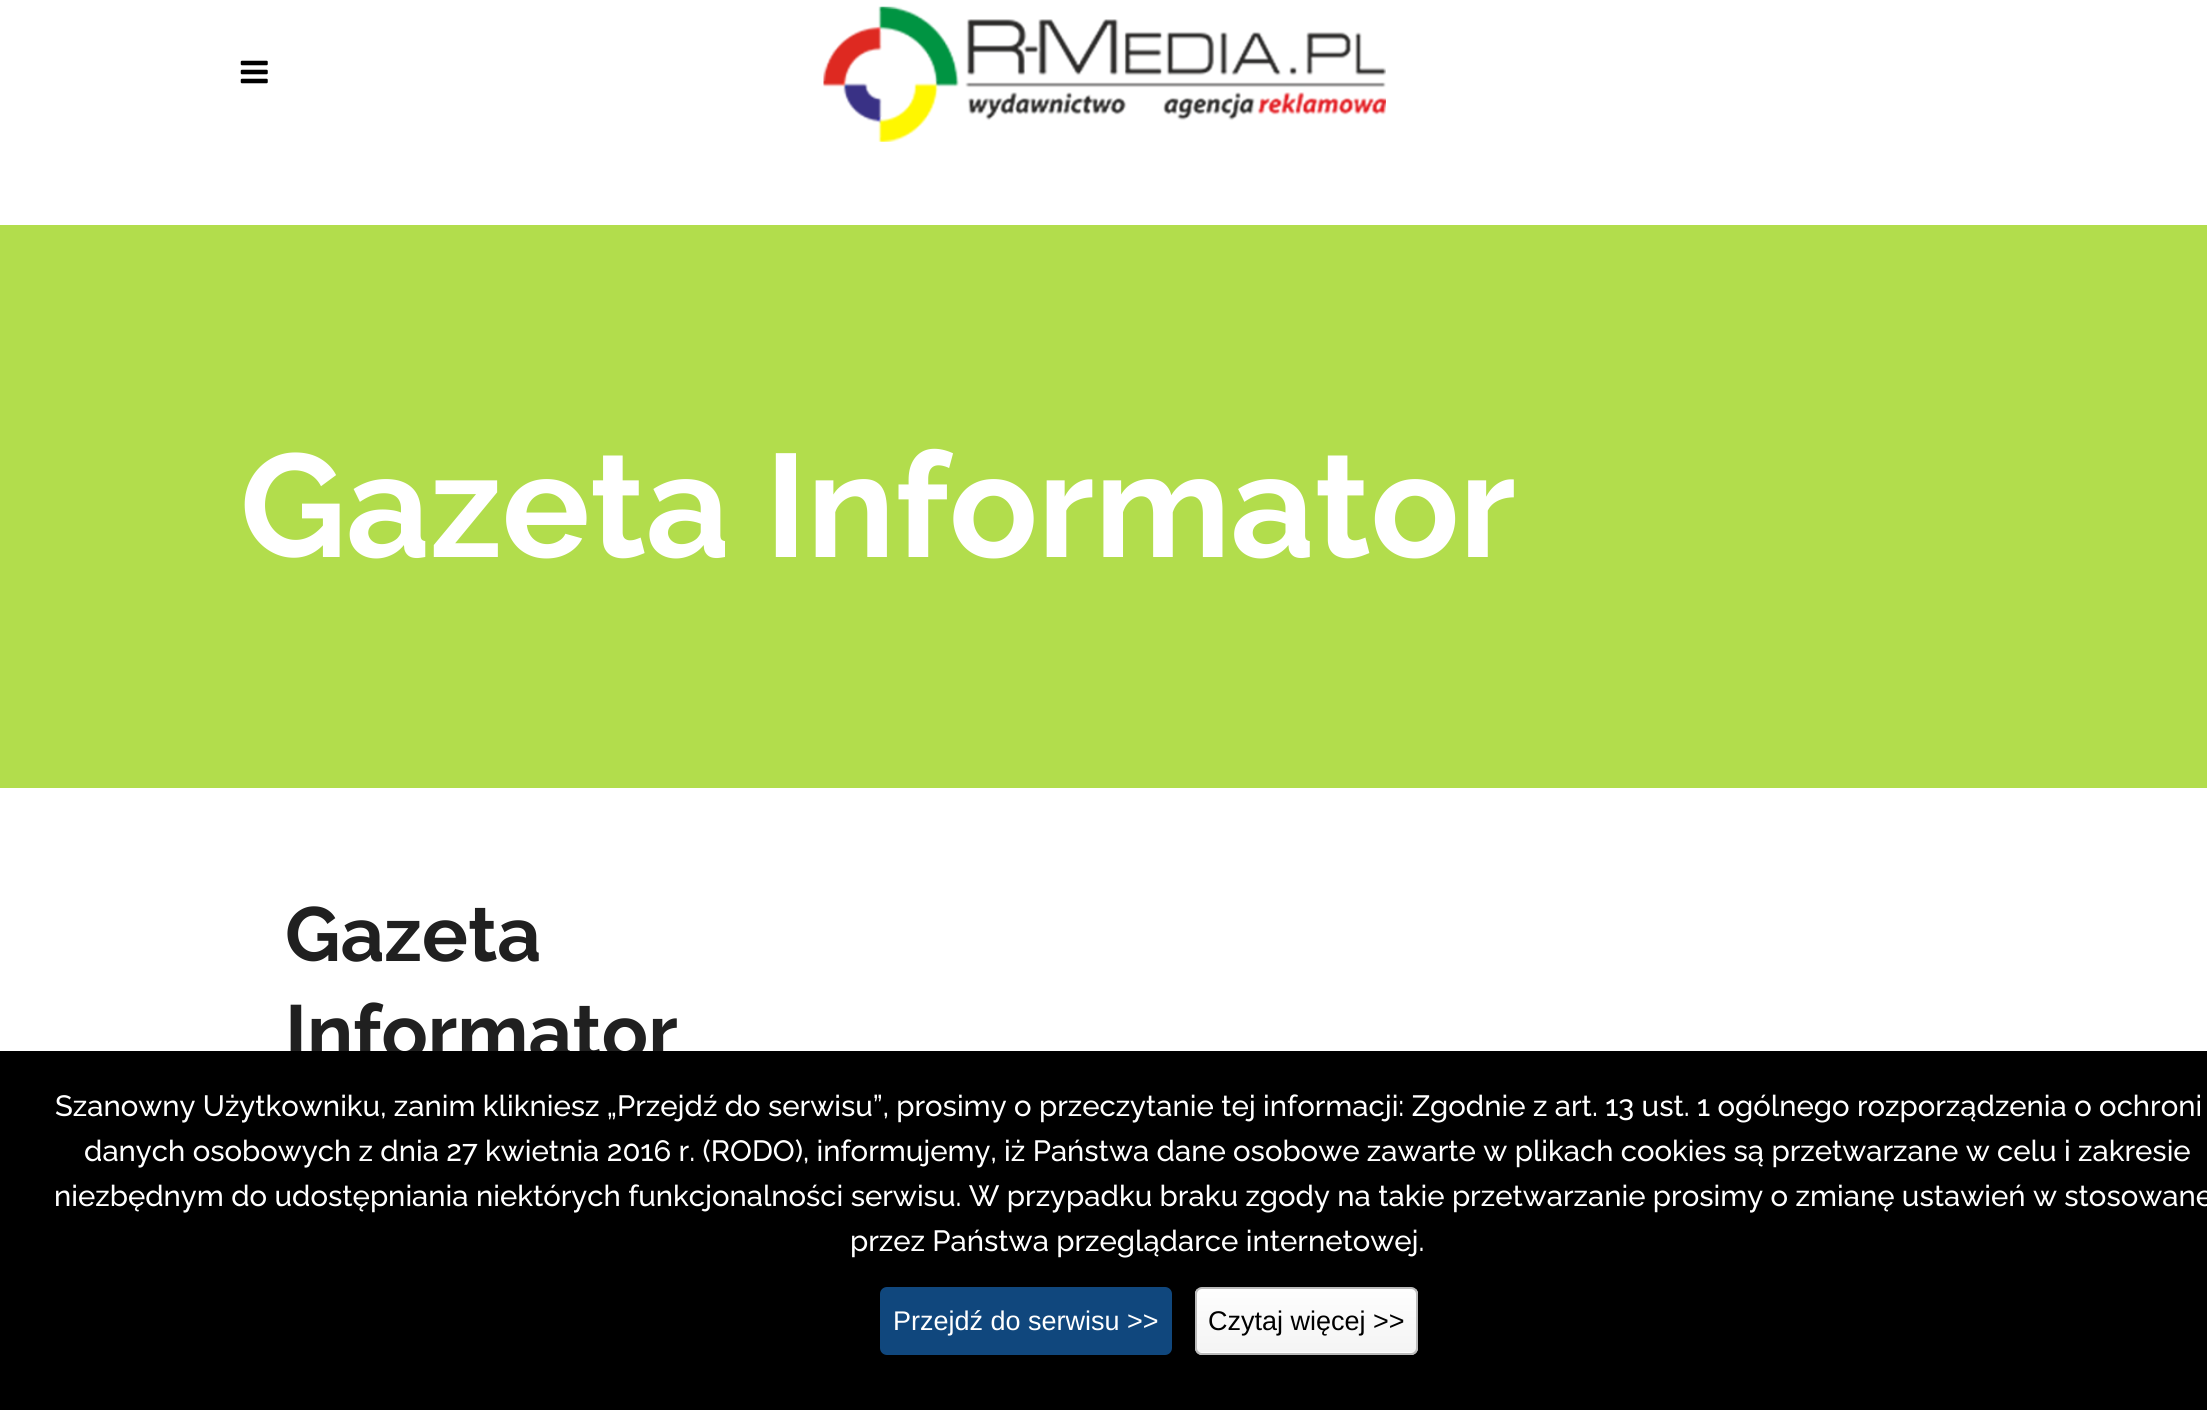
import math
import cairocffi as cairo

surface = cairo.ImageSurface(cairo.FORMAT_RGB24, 2207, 1410)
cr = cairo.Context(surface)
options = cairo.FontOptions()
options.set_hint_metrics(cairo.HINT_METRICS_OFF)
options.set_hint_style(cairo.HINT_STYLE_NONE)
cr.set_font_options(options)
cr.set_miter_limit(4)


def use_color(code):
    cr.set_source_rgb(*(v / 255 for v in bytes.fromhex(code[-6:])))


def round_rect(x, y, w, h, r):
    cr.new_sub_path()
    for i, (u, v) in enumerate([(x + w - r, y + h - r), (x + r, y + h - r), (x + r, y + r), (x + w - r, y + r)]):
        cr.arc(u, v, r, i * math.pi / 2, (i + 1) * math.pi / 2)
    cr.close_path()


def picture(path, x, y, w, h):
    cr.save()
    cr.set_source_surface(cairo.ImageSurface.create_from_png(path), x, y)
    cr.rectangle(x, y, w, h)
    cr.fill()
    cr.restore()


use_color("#ffffff")
cr.paint()
picture("img1.png", 240, 60, 28, 24)
picture("img2.png", 823, 6, 563, 136)
use_color("#b2dd4c")
cr.rectangle(0, 225, 2207, 563)
cr.fill()
cr.select_font_face("Raleway", cairo.FONT_SLANT_NORMAL, cairo.FONT_WEIGHT_BOLD)
cr.set_font_size(146.25)
use_color("#ffffff")
cr.move_to(240, 557)
cr.show_text("Gazeta Informator")
cr.set_font_size(76.5)
use_color("#202020")
cr.move_to(285, 961)
cr.show_text("Gazeta")
cr.move_to(285, 1059)
cr.show_text("Informator")
use_color("#000000")
cr.rectangle(0, 1051, 2207, 359)
cr.fill()
cr.select_font_face("Raleway Medium")
cr.set_font_size(29.25)
use_color("#ffffff")
cr.move_to(55, 1116)
cr.show_text("Szanowny Użytkowniku, zanim klikniesz „Przejdź do serwisu”, prosimy o przeczytanie tej informacji: Zgodnie z art. 13 ust. 1 ogólnego rozporządzenia o ochroni")
cr.move_to(84, 1161)
cr.show_text("danych osobowych z dnia 27 kwietnia 2016 r. (RODO), informujemy, iż Państwa dane osobowe zawarte w plikach cookies są przetwarzane w celu i zakresie")
cr.move_to(54, 1206)
cr.show_text("niezbędnym do udostępniania niektórych funkcjonalności serwisu. W przypadku braku zgody na takie przetwarzanie prosimy o zmianę ustawień w stosowane")
cr.move_to(850, 1251)
cr.show_text("przez Państwa przeglądarce internetowej.")
use_color("#10477d")
round_rect(880, 1287, 292, 68, 7)
cr.fill()
cr.select_font_face("Liberation Sans")
cr.set_font_size(27)
use_color("#ffffff")
cr.move_to(893, 1330)
cr.show_text("Przejdź do serwisu >>")
cr.save()
round_rect(1195, 1287, 223, 68, 7)
cr.clip()
gradient = cairo.LinearGradient(1306, 1289, 1306, 1352)
gradient.add_color_stop_rgba(0, 0.996, 0.996, 0.996, 1)
gradient.add_color_stop_rgba(1, 0.957, 0.957, 0.957, 1)
cr.set_source(gradient)
cr.rectangle(1195, 1289, 223, 63)
cr.fill()
gradient = cairo.LinearGradient(1306, 1352, 1306, 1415)
gradient.add_color_stop_rgba(0, 0.996, 0.996, 0.996, 1)
gradient.add_color_stop_rgba(1, 0.957, 0.957, 0.957, 1)
cr.set_source(gradient)
cr.rectangle(1195, 1352, 223, 3)
cr.fill()
cr.restore()
round_rect(1196, 1288, 221, 66, 6)
use_color("#bbbbbb")
cr.stroke()
use_color("#000000")
cr.move_to(1208, 1330)
cr.show_text("Czytaj więcej >>")
surface.write_to_png("result.png")
